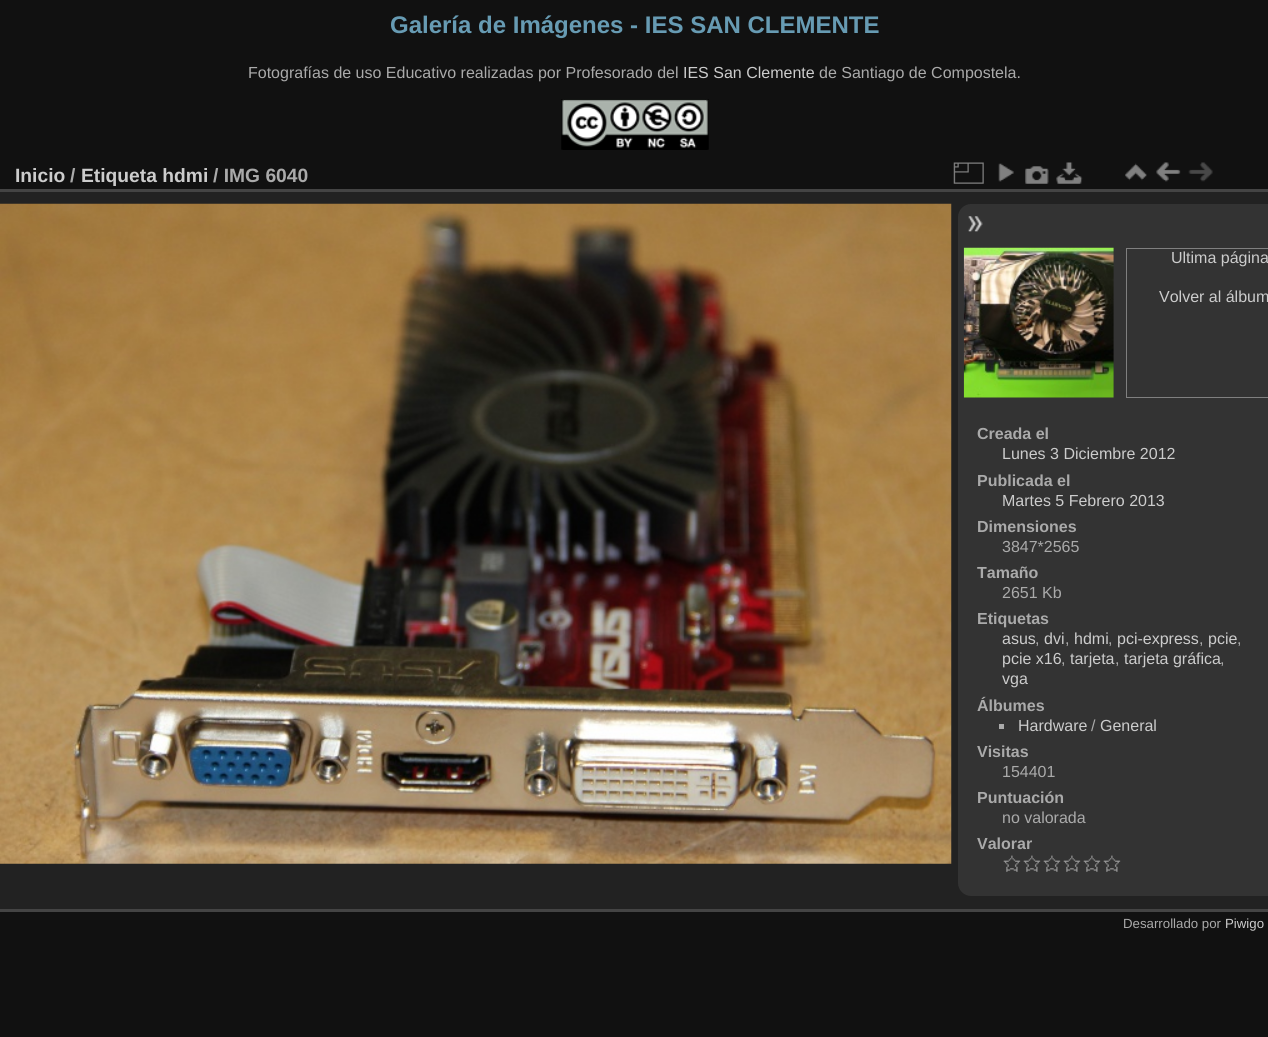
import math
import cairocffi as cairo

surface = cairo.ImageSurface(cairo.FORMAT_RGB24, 1268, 1037)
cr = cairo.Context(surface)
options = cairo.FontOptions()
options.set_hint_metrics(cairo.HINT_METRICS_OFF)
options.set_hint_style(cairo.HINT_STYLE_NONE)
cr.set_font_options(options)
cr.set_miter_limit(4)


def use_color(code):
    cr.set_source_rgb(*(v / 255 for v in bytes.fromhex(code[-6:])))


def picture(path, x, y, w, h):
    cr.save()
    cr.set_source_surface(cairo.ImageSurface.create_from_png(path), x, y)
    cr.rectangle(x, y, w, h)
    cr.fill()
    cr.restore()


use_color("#111111")
cr.paint()
cr.select_font_face("Liberation Sans", cairo.FONT_SLANT_NORMAL, cairo.FONT_WEIGHT_BOLD)
cr.set_font_size(24)
use_color("#679bb3")
cr.move_to(390, 33)
cr.show_text("Galería de Imágenes - IES SAN CLEMENTE")
cr.select_font_face("Liberation Sans")
cr.set_font_size(16)
use_color("#aaaaaa")
cr.move_to(248, 78)
cr.show_text("Fotografías de uso Educativo realizadas por Profesorado del")
use_color("#cccccc")
cr.move_to(683, 78)
cr.show_text("IES San Clemente")
use_color("#aaaaaa")
cr.move_to(819, 78)
cr.show_text("de Santiago de Compostela.")
picture("img1.png", 561, 99, 148, 51)
use_color("#222222")
cr.rectangle(0, 192, 1268, 717)
cr.fill()
use_color("#444444")
cr.rectangle(0, 909, 1268, 3)
cr.fill()
cr.rectangle(0, 189, 1268, 3)
cr.fill()
cr.select_font_face("Liberation Sans", cairo.FONT_SLANT_NORMAL, cairo.FONT_WEIGHT_BOLD)
cr.set_font_size(19.25)
use_color("#cccccc")
cr.move_to(15, 182)
cr.show_text("Inicio")
use_color("#aaaaaa")
cr.move_to(70, 182)
cr.show_text("/")
use_color("#cccccc")
cr.move_to(81, 182)
cr.show_text("Etiqueta hdmi")
use_color("#aaaaaa")
cr.move_to(213, 182)
cr.show_text("/ IMG 6040")
picture("img2.png", 953, 162, 31, 22)
picture("img3.png", 998, 163, 16, 19)
picture("img4.png", 1025, 166, 24, 18)
picture("img5.png", 1056, 162, 27, 22)
picture("img6.png", 1125, 163, 22, 18)
picture("img7.png", 1156, 162, 25, 20)
picture("img8.png", 1188, 162, 25, 20)
picture("img9.png", 0, 203, 952, 661)
use_color("#333333")
cr.new_path()
cr.move_to(971, 204)
cr.line_to(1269, 204)
cr.line_to(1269, 896)
cr.line_to(971, 896)
cr.curve_to(964, 896, 958, 890, 958, 883)
cr.line_to(958, 217)
cr.curve_to(958, 210, 964, 204, 971, 204)
cr.close_path()
cr.fill()
picture("img10.png", 968, 216, 15, 16)
picture("img11.png", 963, 247, 151, 151)
cr.rectangle(1126.5, 248.5, 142, 149)
use_color("#808080")
cr.set_line_width(1)
cr.stroke()
cr.select_font_face("Liberation Sans")
cr.set_font_size(16)
use_color("#cccccc")
cr.move_to(1171, 263)
cr.show_text("Ultima página")
cr.move_to(1159, 302)
cr.show_text("Volver al álbum")
cr.select_font_face("Liberation Sans", cairo.FONT_SLANT_NORMAL, cairo.FONT_WEIGHT_BOLD)
use_color("#aaaaaa")
cr.move_to(977, 439)
cr.show_text("Creada el")
cr.select_font_face("Liberation Sans")
use_color("#cccccc")
cr.move_to(1002, 459)
cr.show_text("Lunes 3 Diciembre 2012")
cr.select_font_face("Liberation Sans", cairo.FONT_SLANT_NORMAL, cairo.FONT_WEIGHT_BOLD)
use_color("#aaaaaa")
cr.move_to(977, 486)
cr.show_text("Publicada el")
cr.select_font_face("Liberation Sans")
use_color("#cccccc")
cr.move_to(1002, 506)
cr.show_text("Martes 5 Febrero 2013")
cr.select_font_face("Liberation Sans", cairo.FONT_SLANT_NORMAL, cairo.FONT_WEIGHT_BOLD)
use_color("#aaaaaa")
cr.move_to(977, 532)
cr.show_text("Dimensiones")
cr.select_font_face("Liberation Sans")
cr.move_to(1002, 552)
cr.show_text("3847*2565")
cr.select_font_face("Liberation Sans", cairo.FONT_SLANT_NORMAL, cairo.FONT_WEIGHT_BOLD)
cr.move_to(977, 578)
cr.show_text("Tamaño")
cr.select_font_face("Liberation Sans")
cr.move_to(1002, 598)
cr.show_text("2651 Kb")
cr.select_font_face("Liberation Sans", cairo.FONT_SLANT_NORMAL, cairo.FONT_WEIGHT_BOLD)
cr.move_to(977, 624)
cr.show_text("Etiquetas")
cr.select_font_face("Liberation Sans")
use_color("#cccccc")
cr.move_to(1002, 644)
cr.show_text("asus")
use_color("#aaaaaa")
cr.move_to(1035, 644)
cr.show_text(",")
use_color("#cccccc")
cr.move_to(1044, 644)
cr.show_text("dvi")
use_color("#aaaaaa")
cr.move_to(1065, 644)
cr.show_text(",")
use_color("#cccccc")
cr.move_to(1074, 644)
cr.show_text("hdmi")
use_color("#aaaaaa")
cr.move_to(1108, 644)
cr.show_text(",")
use_color("#cccccc")
cr.move_to(1117, 644)
cr.show_text("pci-express")
use_color("#aaaaaa")
cr.move_to(1199, 644)
cr.show_text(",")
use_color("#cccccc")
cr.move_to(1208, 644)
cr.show_text("pcie")
use_color("#aaaaaa")
cr.move_to(1237, 644)
cr.show_text(",")
use_color("#cccccc")
cr.move_to(1002, 664)
cr.show_text("pcie x16")
use_color("#aaaaaa")
cr.move_to(1061, 664)
cr.show_text(",")
use_color("#cccccc")
cr.move_to(1070, 664)
cr.show_text("tarjeta")
use_color("#aaaaaa")
cr.move_to(1115, 664)
cr.show_text(",")
use_color("#cccccc")
cr.move_to(1124, 664)
cr.show_text("tarjeta gráfica")
use_color("#aaaaaa")
cr.move_to(1220, 664)
cr.show_text(",")
use_color("#cccccc")
cr.move_to(1002, 684)
cr.show_text("vga")
cr.select_font_face("Liberation Sans", cairo.FONT_SLANT_NORMAL, cairo.FONT_WEIGHT_BOLD)
use_color("#aaaaaa")
cr.move_to(977, 711)
cr.show_text("Álbumes")
cr.rectangle(999, 724, 5, 5)
cr.fill()
cr.select_font_face("Liberation Sans")
use_color("#cccccc")
cr.move_to(1018, 731)
cr.show_text("Hardware")
use_color("#aaaaaa")
cr.move_to(1091, 731)
cr.show_text("/")
use_color("#cccccc")
cr.move_to(1100, 731)
cr.show_text("General")
cr.select_font_face("Liberation Sans", cairo.FONT_SLANT_NORMAL, cairo.FONT_WEIGHT_BOLD)
use_color("#aaaaaa")
cr.move_to(977, 757)
cr.show_text("Visitas")
cr.select_font_face("Liberation Sans")
cr.move_to(1002, 777)
cr.show_text("154401")
cr.select_font_face("Liberation Sans", cairo.FONT_SLANT_NORMAL, cairo.FONT_WEIGHT_BOLD)
cr.move_to(977, 803)
cr.show_text("Puntuación")
cr.select_font_face("Liberation Sans")
cr.move_to(1002, 823)
cr.show_text("no valorada")
cr.select_font_face("Liberation Sans", cairo.FONT_SLANT_NORMAL, cairo.FONT_WEIGHT_BOLD)
cr.move_to(977, 849)
cr.show_text("Valorar")
picture("img12.png", 1003, 855, 18, 17)
picture("img13.png", 1023, 855, 18, 17)
picture("img13.png", 1043, 855, 18, 17)
picture("img13.png", 1063, 855, 18, 17)
picture("img13.png", 1083, 855, 18, 17)
picture("img13.png", 1103, 855, 18, 17)
cr.select_font_face("Liberation Sans")
cr.set_font_size(13.25)
cr.move_to(1123, 928)
cr.show_text("Desarrollado por")
use_color("#cccccc")
cr.move_to(1225, 928)
cr.show_text("Piwigo")
surface.write_to_png("result.png")
